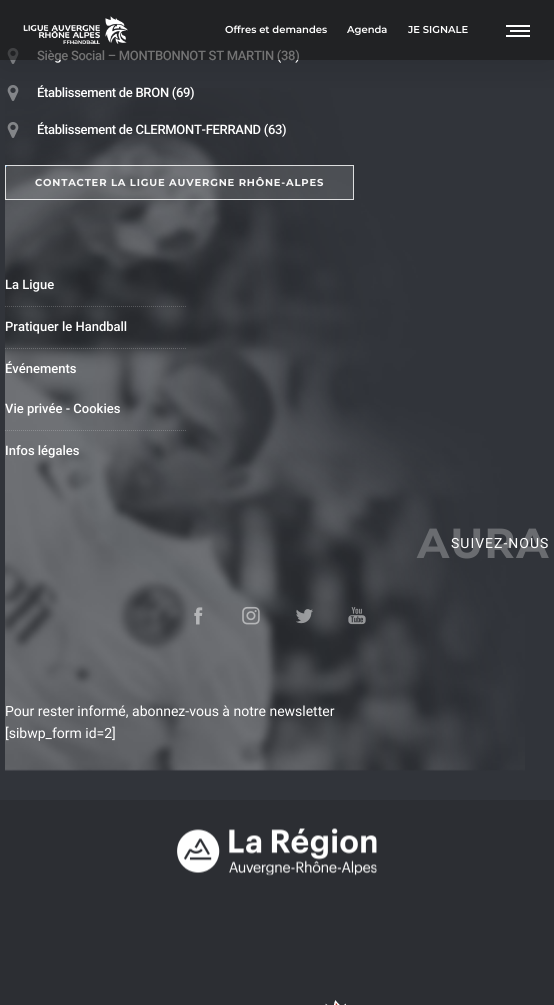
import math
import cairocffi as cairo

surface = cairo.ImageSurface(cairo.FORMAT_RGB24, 554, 1005)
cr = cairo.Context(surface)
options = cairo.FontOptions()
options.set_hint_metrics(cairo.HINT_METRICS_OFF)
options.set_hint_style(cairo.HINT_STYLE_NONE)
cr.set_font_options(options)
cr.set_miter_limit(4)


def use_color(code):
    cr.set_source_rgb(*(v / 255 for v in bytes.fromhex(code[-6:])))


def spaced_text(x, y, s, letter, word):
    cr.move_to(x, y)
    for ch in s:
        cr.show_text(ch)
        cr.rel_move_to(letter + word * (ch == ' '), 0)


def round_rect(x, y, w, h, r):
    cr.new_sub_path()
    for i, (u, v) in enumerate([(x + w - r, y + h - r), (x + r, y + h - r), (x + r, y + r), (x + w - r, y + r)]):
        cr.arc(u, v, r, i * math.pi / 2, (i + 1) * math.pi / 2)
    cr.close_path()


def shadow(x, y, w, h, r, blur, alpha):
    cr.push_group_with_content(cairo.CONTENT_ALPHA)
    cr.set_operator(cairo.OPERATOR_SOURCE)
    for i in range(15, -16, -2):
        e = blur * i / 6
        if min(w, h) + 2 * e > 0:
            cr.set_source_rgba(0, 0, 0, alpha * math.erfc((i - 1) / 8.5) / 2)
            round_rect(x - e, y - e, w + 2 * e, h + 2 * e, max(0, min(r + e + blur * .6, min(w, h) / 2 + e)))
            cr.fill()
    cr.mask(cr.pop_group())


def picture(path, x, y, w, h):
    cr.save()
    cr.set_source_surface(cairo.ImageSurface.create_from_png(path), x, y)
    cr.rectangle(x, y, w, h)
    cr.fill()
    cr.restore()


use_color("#31343a")
cr.paint()
picture("img2.png", 7, 48, 12, 16)
picture("img9.png", 5, 88, 520, 683)
picture("img3.png", 7, 85, 12, 16)
picture("img4.png", 7, 122, 12, 16)
cr.save()
cr.rectangle(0, 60, 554, 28)
cr.clip()
use_color("#000000")
shadow(0, 0, 554, 60, 0, 25, 0.15)
cr.restore()
cr.select_font_face("Roboto Medium")
cr.set_font_size(13)
use_color("#ffffff")
spaced_text(37, 60, "Siège Social – MONTBONNOT ST MARTIN (38)", -0.3, 0)
cr.set_source_rgba(0.086, 0.086, 0.086, 0.6)
cr.rectangle(0, 0, 554, 60)
cr.fill()
picture("img1.png", 23, 16, 105, 28)
cr.select_font_face("Montserrat SemiBold")
cr.set_font_size(10)
use_color("#ffffff")
cr.move_to(225, 33)
cr.show_text("Offres et demandes")
cr.move_to(347, 33)
cr.show_text("Agenda")
cr.move_to(408, 33)
cr.show_text("JE SIGNALE")
cr.rectangle(506, 25, 24, 2)
cr.fill()
cr.rectangle(510, 30, 20, 2)
cr.fill()
cr.rectangle(506, 35, 24, 2)
cr.fill()
cr.select_font_face("Roboto Medium")
cr.set_font_size(13)
spaced_text(37, 97, "Établissement de BRON (69)", -0.3, 0)
spaced_text(37, 134, "Établissement de CLERMONT-FERRAND (63)", -0.3, 0)
cr.set_source_rgba(1, 1, 1, 0.14)
cr.rectangle(5, 165, 349, 35)
cr.fill()
use_color("#3d82bf")
cr.arc(6, 166, 1, 0, 2 * math.pi)
cr.fill()
cr.rectangle(5.5, 165.5, 348, 34)
cr.set_source_rgba(1, 1, 1, 0.81)
cr.set_line_width(1)
cr.stroke()
cr.select_font_face("Montserrat", cairo.FONT_SLANT_NORMAL, cairo.FONT_WEIGHT_BOLD)
cr.set_font_size(10)
use_color("#f7f7f7")
spaced_text(35, 186, "CONTACTER LA LIGUE AUVERGNE RHÔNE-ALPES", 0.8, 0)
cr.select_font_face("Roboto Medium")
cr.set_font_size(13)
use_color("#ffffff")
cr.move_to(5, 289)
cr.show_text("La Ligue")
cr.new_path()
cr.move_to(5, 306.5)
cr.line_to(186, 306.5)
cr.set_source_rgba(1, 1, 1, 0.2)
cr.set_dash([1, 1])
cr.stroke()
use_color("#ffffff")
cr.move_to(5, 331)
cr.show_text("Pratiquer le Handball")
cr.new_path()
cr.move_to(5, 348.5)
cr.line_to(186, 348.5)
cr.set_source_rgba(1, 1, 1, 0.2)
cr.stroke()
use_color("#ffffff")
cr.move_to(5, 373)
cr.show_text("Événements")
cr.move_to(5, 413)
cr.show_text("Vie privée - Cookies")
cr.new_path()
cr.move_to(5, 430.5)
cr.line_to(186, 430.5)
cr.set_source_rgba(1, 1, 1, 0.2)
cr.stroke()
use_color("#ffffff")
cr.move_to(5, 455)
cr.show_text("Infos légales")
cr.select_font_face("Montserrat", cairo.FONT_SLANT_NORMAL, cairo.FONT_WEIGHT_BOLD)
cr.set_font_size(42)
use_color("#6a6c70")
spaced_text(417, 558, "AURA", 1, 0)
cr.select_font_face("Roboto")
cr.set_font_size(14)
use_color("#ffffff")
spaced_text(451, 548, "SUIVEZ-NOUS", 1, 0)
picture("img5.png", 194, 607, 9, 18)
picture("img6.png", 242, 606, 18, 19)
picture("img7.png", 296, 609, 17, 15)
picture("img8.png", 348, 607, 18, 18)
cr.move_to(5, 716)
cr.show_text("Pour rester informé, abonnez-vous à notre newsletter")
cr.move_to(5, 738)
cr.show_text("[sibwp_form id=2]")
use_color("#2c2e33")
cr.rectangle(0, 800, 554, 205)
cr.fill()
picture("img10.png", 177, 828, 200, 48)
picture("img11.png", 325, 1000, 21, 5)
surface.write_to_png("result.png")
